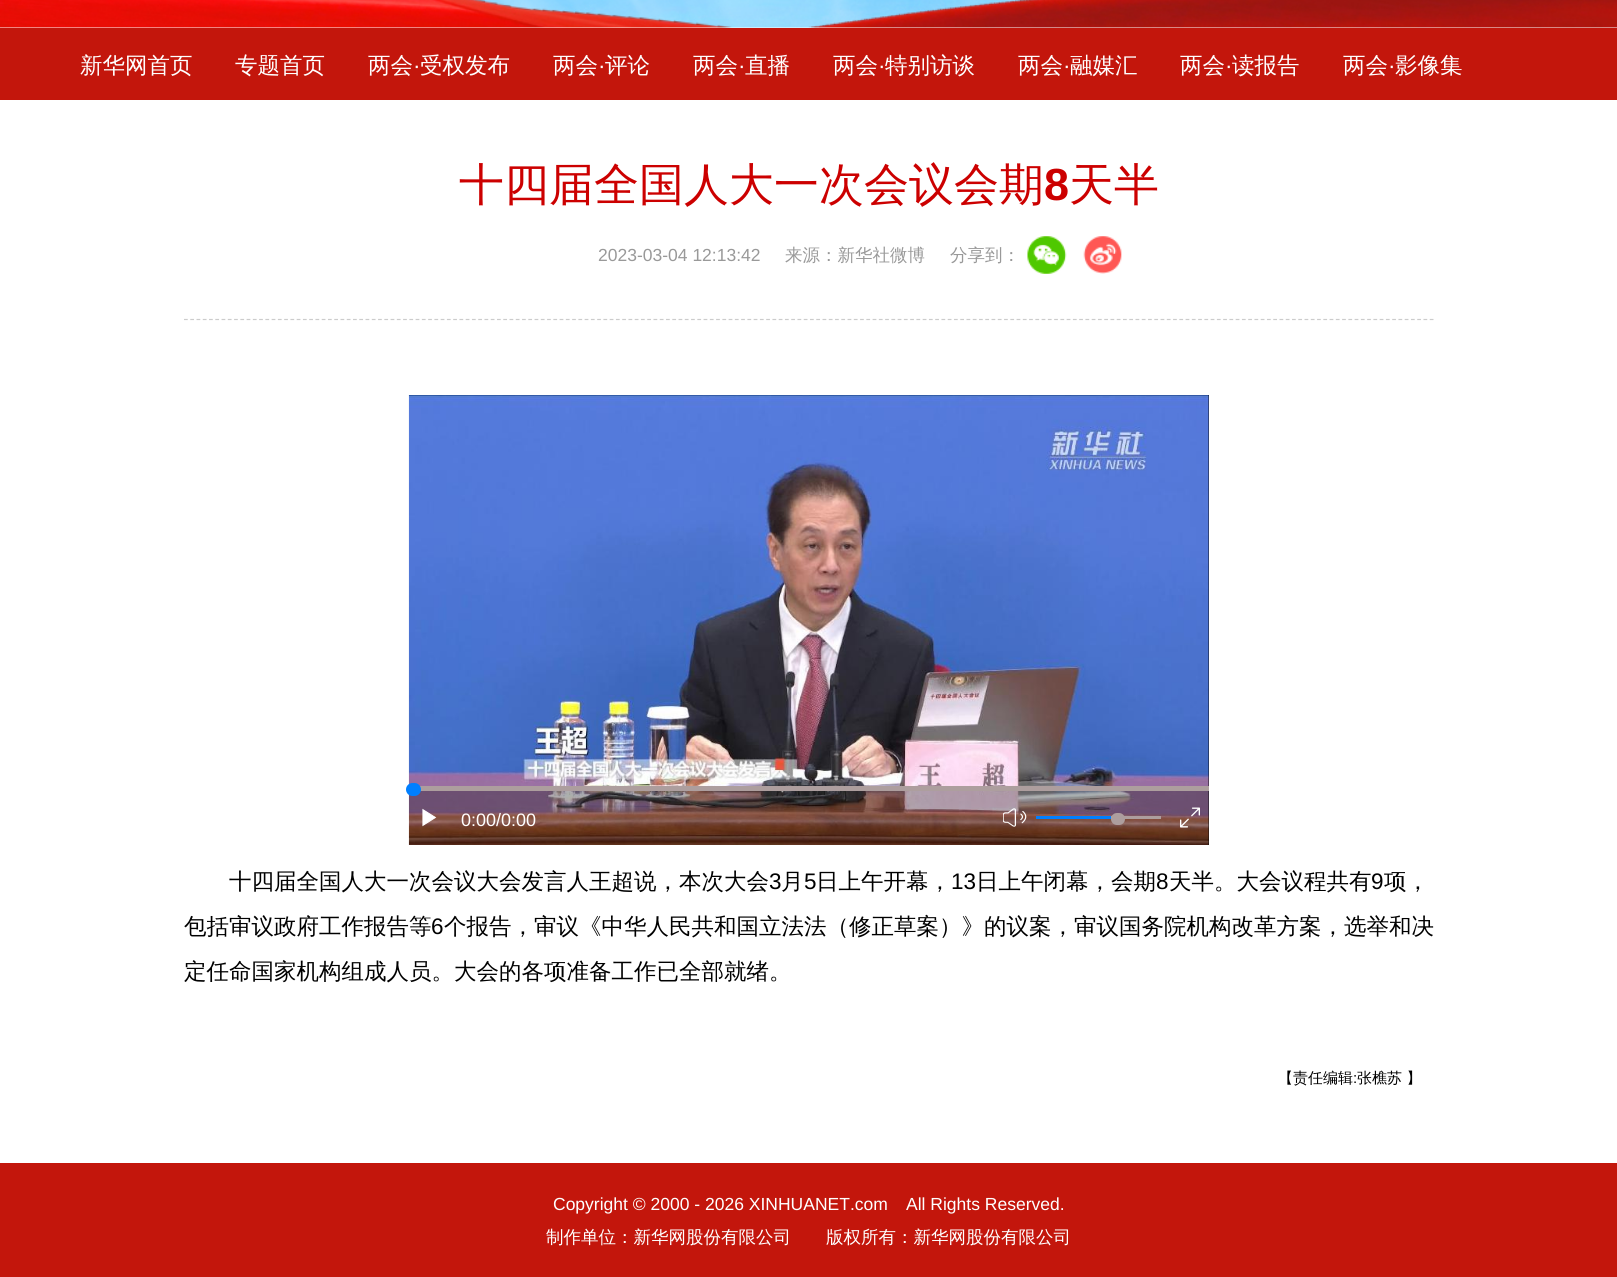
import math
import cairocffi as cairo

surface = cairo.ImageSurface(cairo.FORMAT_RGB24, 1617, 1277)
cr = cairo.Context(surface)
options = cairo.FontOptions()
options.set_hint_metrics(cairo.HINT_METRICS_OFF)
options.set_hint_style(cairo.HINT_STYLE_NONE)
cr.set_font_options(options)
cr.set_miter_limit(4)


def use_color(code):
    cr.set_source_rgb(*(v / 255 for v in bytes.fromhex(code[-6:])))


def round_rect(x, y, w, h, r):
    cr.new_sub_path()
    for i, (u, v) in enumerate([(x + w - r, y + h - r), (x + r, y + h - r), (x + r, y + r), (x + w - r, y + r)]):
        cr.arc(u, v, r, i * math.pi / 2, (i + 1) * math.pi / 2)
    cr.close_path()


def picture(path, x, y, w, h):
    cr.save()
    cr.set_source_surface(cairo.ImageSurface.create_from_png(path), x, y)
    cr.rectangle(x, y, w, h)
    cr.fill()
    cr.restore()


use_color("#ffffff")
cr.paint()
picture("img1.png", 0, 0, 1617, 28)
use_color("#c3160c")
cr.rectangle(0, 28, 1617, 72)
cr.fill()
cr.select_font_face("WenQuanYi Zen Hei Medium")
cr.set_font_size(22.5)
use_color("#ffffff")
cr.move_to(80, 73)
cr.show_text("新华网首页")
cr.move_to(235, 73)
cr.show_text("专题首页")
cr.move_to(368, 73)
cr.show_text("两会")
cr.select_font_face("Liberation Sans")
cr.move_to(413, 73)
cr.show_text("·")
cr.select_font_face("WenQuanYi Zen Hei Medium")
cr.move_to(420, 73)
cr.show_text("受权发布")
cr.move_to(553, 73)
cr.show_text("两会")
cr.select_font_face("Liberation Sans")
cr.move_to(598, 73)
cr.show_text("·")
cr.select_font_face("WenQuanYi Zen Hei Medium")
cr.move_to(605, 73)
cr.show_text("评论")
cr.move_to(693, 73)
cr.show_text("两会")
cr.select_font_face("Liberation Sans")
cr.move_to(738, 73)
cr.show_text("·")
cr.select_font_face("WenQuanYi Zen Hei Medium")
cr.move_to(745, 73)
cr.show_text("直播")
cr.move_to(833, 73)
cr.show_text("两会")
cr.select_font_face("Liberation Sans")
cr.move_to(878, 73)
cr.show_text("·")
cr.select_font_face("WenQuanYi Zen Hei Medium")
cr.move_to(885, 73)
cr.show_text("特别访谈")
cr.move_to(1018, 73)
cr.show_text("两会")
cr.select_font_face("Liberation Sans")
cr.move_to(1063, 73)
cr.show_text("·")
cr.select_font_face("WenQuanYi Zen Hei Medium")
cr.move_to(1070, 73)
cr.show_text("融媒汇")
cr.move_to(1180, 73)
cr.show_text("两会")
cr.select_font_face("Liberation Sans")
cr.move_to(1225, 73)
cr.show_text("·")
cr.select_font_face("WenQuanYi Zen Hei Medium")
cr.move_to(1232, 73)
cr.show_text("读报告")
cr.move_to(1343, 73)
cr.show_text("两会")
cr.select_font_face("Liberation Sans")
cr.move_to(1388, 73)
cr.show_text("·")
cr.select_font_face("WenQuanYi Zen Hei Medium")
cr.move_to(1395, 73)
cr.show_text("影像集")
cr.new_path()
cr.move_to(184, 319.5)
cr.line_to(1434, 319.5)
use_color("#cccccc")
cr.set_line_width(1.2)
cr.set_dash([3.75, 2.51])
cr.stroke()
cr.set_font_size(45)
use_color("#cc0000")
cr.move_to(459, 200)
cr.show_text("十四届全国人大一次会议会期")
cr.select_font_face("Liberation Sans", cairo.FONT_SLANT_NORMAL, cairo.FONT_WEIGHT_BOLD)
cr.move_to(1044, 200)
cr.show_text("8")
cr.select_font_face("WenQuanYi Zen Hei Medium")
cr.move_to(1069, 200)
cr.show_text("天半")
cr.select_font_face("Liberation Sans")
cr.set_font_size(17.5)
use_color("#999999")
cr.move_to(598, 261)
cr.show_text("2023-03-04 12:13:42")
cr.select_font_face("WenQuanYi Zen Hei Medium")
cr.move_to(785, 261)
cr.show_text("来源：新华社微博")
cr.move_to(950, 261)
cr.show_text("分享到：")
picture("img2.png", 1027, 236, 40, 38)
picture("img3.png", 1083, 236, 39, 38)
use_color("#000000")
cr.rectangle(1208, 395, 1, 450)
cr.fill()
picture("img4.png", 408, 395, 801, 450)
cr.set_source_rgba(0.063, 0.063, 0.063, 0.33)
cr.rectangle(409, 791, 800, 54)
cr.fill()
use_color("#ad9e9e")
cr.rectangle(420, 786, 789, 5)
cr.fill()
use_color("#007fff")
round_rect(406, 783, 15, 13, 6.5)
cr.fill()
picture("img5.png", 422, 808, 15, 19)
cr.select_font_face("Liberation Sans")
cr.set_font_size(18)
use_color("#ffffff")
cr.move_to(461, 826)
cr.show_text("0:00/0:00")
picture("img6.png", 1003, 808, 24, 19)
use_color("#ad9e9e")
cr.rectangle(1111, 816, 50, 3)
cr.fill()
use_color("#007fff")
cr.rectangle(1036, 816, 75, 3)
cr.fill()
use_color("#ad9e9e")
round_rect(1111, 813, 14, 12, 6)
cr.fill()
picture("img7.png", 1180, 807, 20, 21)
cr.select_font_face("WenQuanYi Zen Hei Medium")
cr.set_font_size(22.5)
use_color("#000000")
cr.move_to(229, 889)
cr.show_text("十四届全国人大一次会议大会发言人王超说，本次大会")
cr.select_font_face("Liberation Sans")
cr.move_to(769, 889)
cr.show_text("3")
cr.select_font_face("WenQuanYi Zen Hei Medium")
cr.move_to(781, 889)
cr.show_text("月")
cr.select_font_face("Liberation Sans")
cr.move_to(804, 889)
cr.show_text("5")
cr.select_font_face("WenQuanYi Zen Hei Medium")
cr.move_to(816, 889)
cr.show_text("日上午开幕，")
cr.select_font_face("Liberation Sans")
cr.move_to(951, 889)
cr.show_text("13")
cr.select_font_face("WenQuanYi Zen Hei Medium")
cr.move_to(976, 889)
cr.show_text("日上午闭幕，会期")
cr.select_font_face("Liberation Sans")
cr.move_to(1156, 889)
cr.show_text("8")
cr.select_font_face("WenQuanYi Zen Hei Medium")
cr.move_to(1169, 889)
cr.show_text("天半。大会议程共有")
cr.select_font_face("Liberation Sans")
cr.move_to(1371, 889)
cr.show_text("9")
cr.select_font_face("WenQuanYi Zen Hei Medium")
cr.move_to(1384, 889)
cr.show_text("项，")
cr.move_to(184, 934)
cr.show_text("包括审议政府工作报告等")
cr.select_font_face("Liberation Sans")
cr.move_to(431, 934)
cr.show_text("6")
cr.select_font_face("WenQuanYi Zen Hei Medium")
cr.move_to(444, 934)
cr.show_text("个报告，审议《中华人民共和国立法法（修正草案）》的议案，审议国务院机构改革方案，选举和决")
cr.move_to(184, 979)
cr.show_text("定任命国家机构组成人员。大会的各项准备工作已全部就绪。")
cr.set_font_size(15)
cr.move_to(1278, 1083)
cr.show_text("【责任编辑")
cr.select_font_face("Liberation Sans")
cr.move_to(1353, 1083)
cr.show_text(":")
cr.select_font_face("WenQuanYi Zen Hei Medium")
cr.move_to(1357, 1083)
cr.show_text("张樵苏 】")
use_color("#c3160c")
cr.rectangle(0, 1163, 1617, 114)
cr.fill()
cr.select_font_face("Liberation Sans")
cr.set_font_size(17.5)
use_color("#ffffff")
cr.move_to(553, 1210)
cr.show_text("Copyright © 2000 - 2026 XINHUANET.com")
cr.move_to(906, 1210)
cr.show_text("All Rights Reserved.")
cr.select_font_face("WenQuanYi Zen Hei Medium")
cr.move_to(546, 1243)
cr.show_text("制作单位：新华网股份有限公司　　版权所有：新华网股份有限公司")
surface.write_to_png("result.png")
